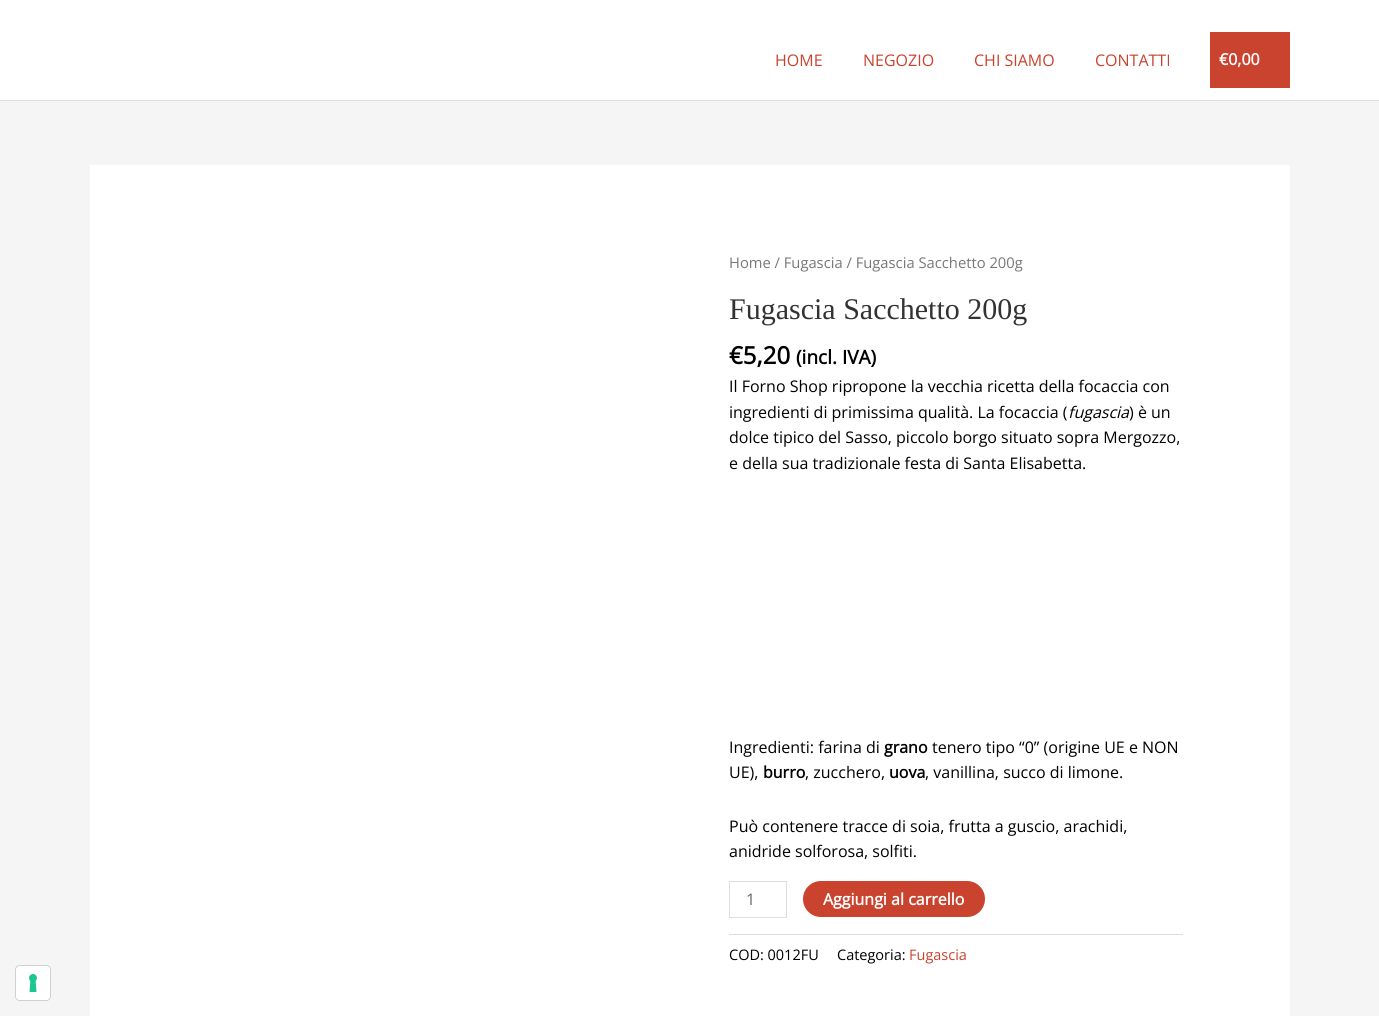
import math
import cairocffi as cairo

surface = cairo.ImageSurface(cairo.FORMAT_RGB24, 1379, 1016)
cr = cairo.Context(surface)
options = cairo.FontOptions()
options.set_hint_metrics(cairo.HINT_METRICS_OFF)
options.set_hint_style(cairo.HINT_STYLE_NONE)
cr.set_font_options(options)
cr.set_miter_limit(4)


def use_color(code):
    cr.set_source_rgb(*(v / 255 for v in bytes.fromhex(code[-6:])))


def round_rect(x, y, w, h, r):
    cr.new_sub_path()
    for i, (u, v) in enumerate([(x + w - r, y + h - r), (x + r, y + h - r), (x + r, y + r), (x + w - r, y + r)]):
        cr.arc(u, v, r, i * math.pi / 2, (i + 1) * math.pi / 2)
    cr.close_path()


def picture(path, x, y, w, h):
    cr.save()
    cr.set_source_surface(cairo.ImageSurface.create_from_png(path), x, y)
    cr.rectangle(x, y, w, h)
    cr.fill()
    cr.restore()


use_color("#f5f5f5")
cr.paint()
use_color("#ffffff")
cr.rectangle(0, 0, 1379, 100)
cr.fill()
use_color("#dddddd")
cr.rectangle(0, 100, 1379, 1)
cr.fill()
cr.select_font_face("Open Sans")
cr.set_font_size(16)
use_color("#c9432e")
cr.move_to(775, 66)
cr.show_text("HOME")
cr.move_to(863, 66)
cr.show_text("NEGOZIO")
cr.move_to(974, 66)
cr.show_text("CHI SIAMO")
cr.move_to(1095, 66)
cr.show_text("CONTATTI")
cr.rectangle(1210, 32, 80, 56)
cr.fill()
cr.select_font_face("Open Sans", cairo.FONT_SLANT_NORMAL, cairo.FONT_WEIGHT_BOLD)
use_color("#ffffff")
cr.move_to(1219, 65)
cr.show_text("€0,00")
cr.rectangle(90, 165, 1200, 851)
cr.fill()
cr.select_font_face("Open Sans")
cr.set_font_size(14.75)
use_color("#777777")
cr.move_to(729, 268)
cr.show_text("Home / Fugascia / Fugascia Sacchetto 200g")
cr.select_font_face("Liberation Serif")
cr.set_font_size(30)
use_color("#333333")
cr.move_to(729, 319)
cr.show_text("Fugascia Sacchetto 200g")
cr.select_font_face("Open Sans", cairo.FONT_SLANT_NORMAL, cairo.FONT_WEIGHT_BOLD)
cr.set_font_size(24)
use_color("#000000")
cr.move_to(729, 364)
cr.show_text("€5,20")
cr.set_font_size(19)
cr.move_to(796, 364)
cr.show_text("(incl. IVA)")
cr.select_font_face("Open Sans")
cr.set_font_size(16)
cr.move_to(729, 392)
cr.show_text("Il Forno Shop ripropone la vecchia ricetta della focaccia con")
cr.move_to(729, 418)
cr.show_text("ingredienti di primissima qualità. La focaccia (")
cr.select_font_face("Open Sans", cairo.FONT_SLANT_ITALIC)
cr.move_to(1068, 418)
cr.show_text("fugascia")
cr.select_font_face("Open Sans")
cr.move_to(1129, 418)
cr.show_text(") è un")
cr.move_to(729, 443)
cr.show_text("dolce tipico del Sasso, piccolo borgo situato sopra Mergozzo,")
cr.move_to(729, 469)
cr.show_text("e della sua tradizionale festa di Santa Elisabetta.")
cr.move_to(729, 753)
cr.show_text("Ingredienti: farina di")
cr.select_font_face("Open Sans", cairo.FONT_SLANT_NORMAL, cairo.FONT_WEIGHT_BOLD)
cr.move_to(884, 753)
cr.show_text("grano")
cr.select_font_face("Open Sans")
cr.move_to(932, 753)
cr.show_text("tenero tipo “0” (origine UE e NON")
cr.move_to(729, 778)
cr.show_text("UE),")
cr.select_font_face("Open Sans", cairo.FONT_SLANT_NORMAL, cairo.FONT_WEIGHT_BOLD)
cr.move_to(763, 778)
cr.show_text("burro")
cr.select_font_face("Open Sans")
cr.move_to(805, 778)
cr.show_text(", zucchero,")
cr.select_font_face("Open Sans", cairo.FONT_SLANT_NORMAL, cairo.FONT_WEIGHT_BOLD)
cr.move_to(889, 778)
cr.show_text("uova")
cr.select_font_face("Open Sans")
cr.move_to(925, 778)
cr.show_text(", vanillina, succo di limone.")
cr.move_to(729, 832)
cr.show_text("Può contenere tracce di soia, frutta a guscio, arachidi,")
cr.move_to(729, 857)
cr.show_text("anidride solforosa, solfiti.")
cr.rectangle(729.5, 881.5, 57, 36)
use_color("#dddddd")
cr.set_line_width(1)
cr.stroke()
use_color("#666666")
cr.move_to(746, 905)
cr.show_text("1")
use_color("#c9432e")
round_rect(803, 881, 182, 36, 18)
cr.fill()
cr.select_font_face("Open Sans", cairo.FONT_SLANT_NORMAL, cairo.FONT_WEIGHT_BOLD)
use_color("#ffffff")
cr.move_to(823, 905)
cr.show_text("Aggiungi al carrello")
use_color("#dddddd")
cr.rectangle(729, 934, 454, 1)
cr.fill()
cr.select_font_face("Open Sans")
cr.set_font_size(14.5)
use_color("#000000")
cr.move_to(729, 960)
cr.show_text("COD: 0012FU")
cr.move_to(837, 960)
cr.show_text("Categoria:")
use_color("#c9432e")
cr.move_to(909, 960)
cr.show_text("Fugascia")
round_rect(15.5, 965.5, 35, 35, 4.5)
use_color("#d0d0d0")
cr.stroke()
use_color("#ffffff")
round_rect(16, 966, 34, 34, 4)
cr.fill()
picture("img1.png", 29, 974, 8, 18)
surface.write_to_png("result.png")
